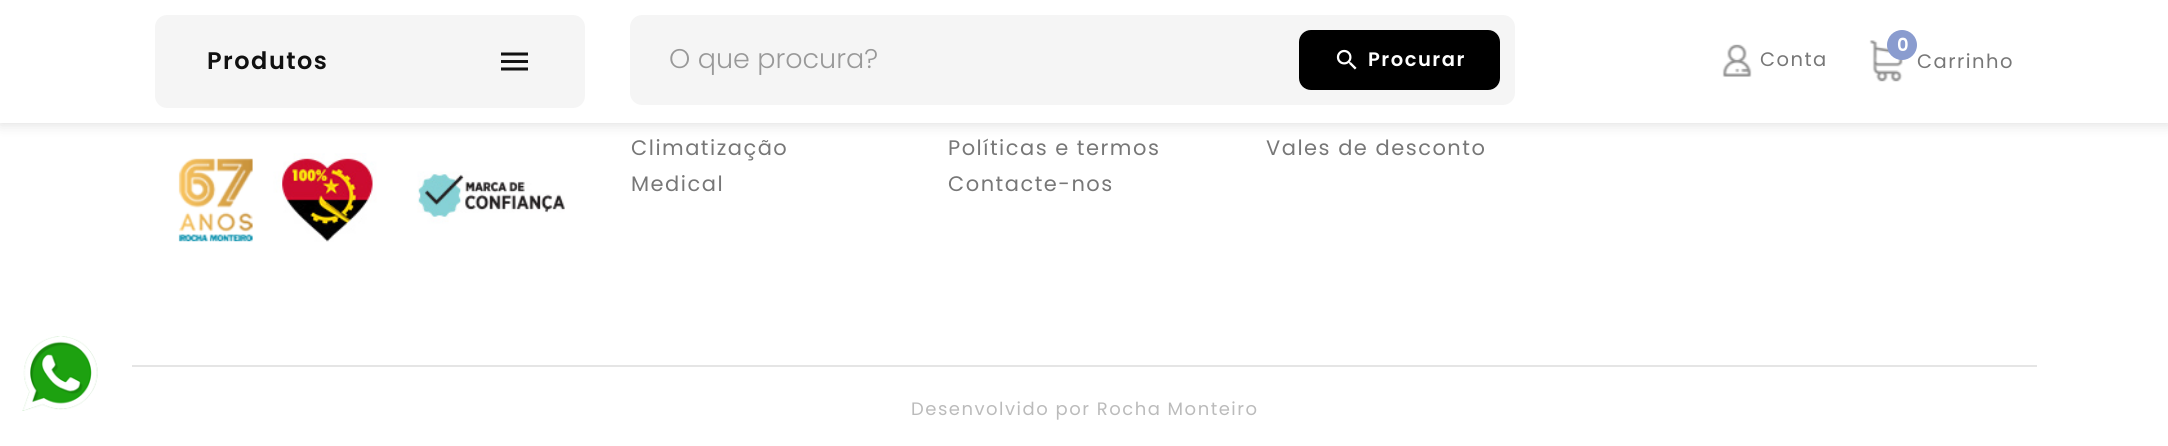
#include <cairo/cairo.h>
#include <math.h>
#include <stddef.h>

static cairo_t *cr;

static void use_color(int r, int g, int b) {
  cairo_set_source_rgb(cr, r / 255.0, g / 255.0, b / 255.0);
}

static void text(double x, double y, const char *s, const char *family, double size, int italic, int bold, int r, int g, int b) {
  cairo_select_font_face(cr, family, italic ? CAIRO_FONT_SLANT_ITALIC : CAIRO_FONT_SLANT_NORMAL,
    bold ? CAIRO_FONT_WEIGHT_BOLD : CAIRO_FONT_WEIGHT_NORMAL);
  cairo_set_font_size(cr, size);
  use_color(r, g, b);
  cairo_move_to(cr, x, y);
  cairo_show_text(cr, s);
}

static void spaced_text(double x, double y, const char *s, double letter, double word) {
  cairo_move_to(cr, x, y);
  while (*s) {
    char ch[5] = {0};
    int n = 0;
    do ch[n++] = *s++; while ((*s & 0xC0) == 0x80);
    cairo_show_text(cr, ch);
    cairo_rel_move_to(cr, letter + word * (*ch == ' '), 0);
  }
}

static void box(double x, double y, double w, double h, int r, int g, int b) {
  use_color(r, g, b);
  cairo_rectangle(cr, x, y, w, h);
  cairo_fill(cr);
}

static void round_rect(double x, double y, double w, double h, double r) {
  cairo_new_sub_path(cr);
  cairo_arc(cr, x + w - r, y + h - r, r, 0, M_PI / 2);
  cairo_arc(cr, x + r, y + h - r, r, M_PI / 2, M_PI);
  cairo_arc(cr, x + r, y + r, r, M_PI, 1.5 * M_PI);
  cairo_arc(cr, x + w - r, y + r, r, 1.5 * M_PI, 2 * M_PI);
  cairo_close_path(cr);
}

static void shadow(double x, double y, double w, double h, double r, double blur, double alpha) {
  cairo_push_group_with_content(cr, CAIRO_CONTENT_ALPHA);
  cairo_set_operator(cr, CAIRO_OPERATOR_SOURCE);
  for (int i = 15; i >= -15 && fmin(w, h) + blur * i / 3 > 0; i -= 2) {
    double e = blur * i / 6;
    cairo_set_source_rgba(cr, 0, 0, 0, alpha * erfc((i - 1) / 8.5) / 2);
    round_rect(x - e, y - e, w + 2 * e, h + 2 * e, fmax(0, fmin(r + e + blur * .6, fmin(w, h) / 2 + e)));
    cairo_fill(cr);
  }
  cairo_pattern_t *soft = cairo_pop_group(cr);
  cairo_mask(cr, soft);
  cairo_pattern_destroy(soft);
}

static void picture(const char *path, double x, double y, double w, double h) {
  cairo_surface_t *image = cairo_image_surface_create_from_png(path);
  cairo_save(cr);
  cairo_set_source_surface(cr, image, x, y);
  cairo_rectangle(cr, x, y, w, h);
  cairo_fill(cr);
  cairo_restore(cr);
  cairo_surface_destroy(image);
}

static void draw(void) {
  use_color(255, 255, 255);
  cairo_paint(cr);
  use_color(0, 0, 0);
  shadow(0, 0, 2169, 123, 0, 7.5, 0.15);
  box(0, 0, 2168, 123, 255, 255, 255);
  use_color(245, 245, 245);
  round_rect(155, 15, 430, 93, 12);
  cairo_fill(cr);
  picture("img_01.png", 501, 52, 27, 19);
  round_rect(630, 15, 885, 90, 12);
  cairo_fill(cr);
  use_color(0, 0, 0);
  round_rect(1299, 30, 201, 60, 12);
  cairo_fill(cr);
  picture("img_02.png", 1336, 49, 21, 21);
  picture("img_03.png", 1722, 44, 30, 33);
  picture("img_04.png", 1869, 40, 34, 42);
  use_color(138, 156, 207);
  cairo_arc(cr, 1902, 45, 15, 0, 2 * M_PI);
  cairo_fill(cr);
  picture("img_05.png", 178, 153, 387, 89);
  picture("img_06.png", 22, 336, 76, 75);
  box(132, 365, 1905, 2, 229, 229, 229);
  cairo_select_font_face(cr, "Poppins SemiBold", CAIRO_FONT_SLANT_NORMAL, CAIRO_FONT_WEIGHT_NORMAL);
  cairo_set_font_size(cr, 24);
  use_color(17, 17, 17);
  spaced_text(207, 69, "Produtos", 1.5, 0);
  text(669, 68, "O que procura?", "Poppins Light", 27, 0, 0, 153, 153, 153);
  cairo_select_font_face(cr, "Poppins SemiBold", CAIRO_FONT_SLANT_NORMAL, CAIRO_FONT_WEIGHT_NORMAL);
  cairo_set_font_size(cr, 19.5);
  use_color(255, 255, 255);
  spaced_text(1368, 66, "Procurar", 1.5, 0);
  cairo_select_font_face(cr, "Poppins", CAIRO_FONT_SLANT_NORMAL, CAIRO_FONT_WEIGHT_NORMAL);
  use_color(119, 119, 119);
  spaced_text(1760, 66, "Conta", 1.5, 0);
  cairo_select_font_face(cr, "Poppins SemiBold", CAIRO_FONT_SLANT_NORMAL, CAIRO_FONT_WEIGHT_NORMAL);
  cairo_set_font_size(cr, 18);
  use_color(255, 255, 255);
  spaced_text(1897, 51, "0", 1.5, 0);
  cairo_select_font_face(cr, "Poppins", CAIRO_FONT_SLANT_NORMAL, CAIRO_FONT_WEIGHT_NORMAL);
  cairo_set_font_size(cr, 19.5);
  use_color(119, 119, 119);
  spaced_text(1917, 68, "Carrinho", 1.5, 0);
  cairo_set_font_size(cr, 21);
  spaced_text(631, 155, "Climatização", 1.5, 0);
  spaced_text(631, 191, "Medical", 1.5, 0);
  spaced_text(948, 155, "Políticas e termos", 1.5, 0);
  spaced_text(948, 191, "Contacte-nos", 1.5, 0);
  spaced_text(1266, 155, "Vales de desconto", 1.5, 0);
  cairo_set_font_size(cr, 18);
  use_color(187, 187, 187);
  spaced_text(911, 415, "Desenvolvido por Rocha Monteiro", 1.5, 0);
}

int main(void) {
  cairo_surface_t *surface = cairo_image_surface_create(CAIRO_FORMAT_RGB24, 2168, 446);
  cr = cairo_create(surface);
  cairo_font_options_t *options = cairo_font_options_create();
  cairo_font_options_set_hint_metrics(options, CAIRO_HINT_METRICS_OFF);
  cairo_font_options_set_hint_style(options, CAIRO_HINT_STYLE_NONE);
  cairo_set_font_options(cr, options);
  cairo_set_miter_limit(cr, 4);
  draw();
  cairo_surface_write_to_png(surface, "out.png");
  cairo_font_options_destroy(options);
  cairo_destroy(cr);
  cairo_surface_destroy(surface);
  return 0;
}
